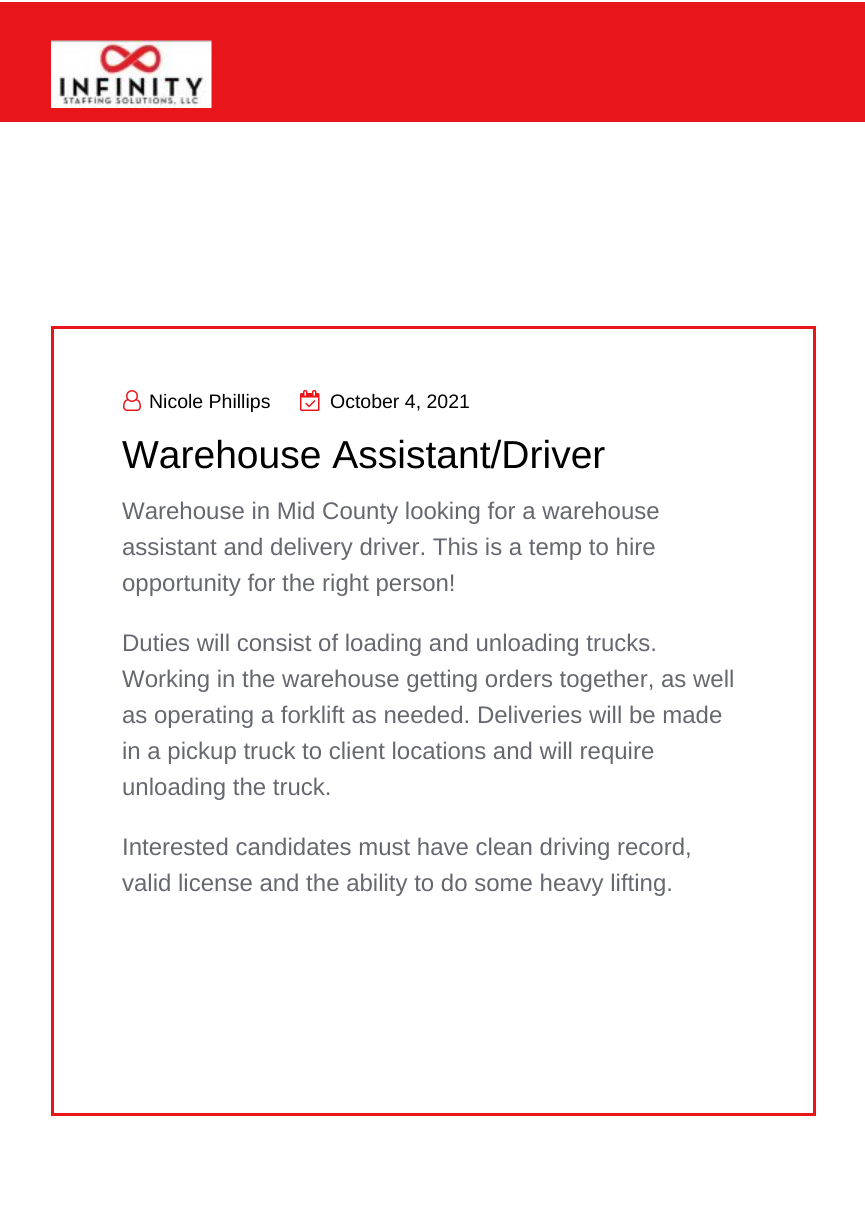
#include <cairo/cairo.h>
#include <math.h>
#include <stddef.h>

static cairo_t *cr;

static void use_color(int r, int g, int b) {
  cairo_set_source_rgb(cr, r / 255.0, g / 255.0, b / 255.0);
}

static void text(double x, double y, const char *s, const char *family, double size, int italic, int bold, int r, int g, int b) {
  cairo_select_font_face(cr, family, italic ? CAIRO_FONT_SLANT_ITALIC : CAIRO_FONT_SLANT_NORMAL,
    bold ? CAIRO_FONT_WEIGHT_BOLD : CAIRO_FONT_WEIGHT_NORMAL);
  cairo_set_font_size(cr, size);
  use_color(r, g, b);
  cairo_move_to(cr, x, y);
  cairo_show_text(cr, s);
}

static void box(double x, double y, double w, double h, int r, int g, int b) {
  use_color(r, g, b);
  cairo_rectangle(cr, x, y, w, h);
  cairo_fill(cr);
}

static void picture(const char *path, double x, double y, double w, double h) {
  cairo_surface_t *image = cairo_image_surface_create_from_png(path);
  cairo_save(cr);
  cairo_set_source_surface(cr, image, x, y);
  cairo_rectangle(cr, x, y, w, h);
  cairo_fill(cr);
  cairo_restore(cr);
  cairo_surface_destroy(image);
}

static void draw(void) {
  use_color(255, 255, 255);
  cairo_paint(cr);
  box(0, 2, 865, 120, 232, 21, 27);
  picture("img_01.png", 51, 40, 161, 68);
  cairo_rectangle(cr, 52.5, 327.5, 762, 787);
  cairo_set_line_width(cr, 3);
  cairo_stroke(cr);
  picture("img_02.png", 123, 390, 18, 21);
  picture("img_03.png", 300, 390, 20, 21);
  text(149, 408, "Nicole Phillips", "Liberation Sans", 19.5, 0, 0, 0, 0, 0);
  text(330, 408, "October 4, 2021", "Liberation Sans", 19.5, 0, 0, 0, 0, 0);
  text(122, 468, "Warehouse Assistant/Driver", "Liberation Sans", 39, 0, 0, 0, 0, 0);
  text(122, 519, "Warehouse in Mid County looking for a warehouse", "Liberation Sans", 24, 0, 0, 102, 104, 111);
  text(122, 555, "assistant and delivery driver. This is a temp to hire", "Liberation Sans", 24, 0, 0, 102, 104, 111);
  text(122, 591, "opportunity for the right person!", "Liberation Sans", 24, 0, 0, 102, 104, 111);
  text(122, 651, "Duties will consist of loading and unloading trucks.", "Liberation Sans", 24, 0, 0, 102, 104, 111);
  text(122, 687, "Working in the warehouse getting orders together, as well", "Liberation Sans", 24, 0, 0, 102, 104, 111);
  text(122, 723, "as operating a forklift as needed. Deliveries will be made", "Liberation Sans", 24, 0, 0, 102, 104, 111);
  text(122, 759, "in a pickup truck to client locations and will require", "Liberation Sans", 24, 0, 0, 102, 104, 111);
  text(122, 795, "unloading the truck.", "Liberation Sans", 24, 0, 0, 102, 104, 111);
  text(122, 855, "Interested candidates must have clean driving record,", "Liberation Sans", 24, 0, 0, 102, 104, 111);
  text(122, 891, "valid license and the ability to do some heavy lifting.", "Liberation Sans", 24, 0, 0, 102, 104, 111);
}

int main(void) {
  cairo_surface_t *surface = cairo_image_surface_create(CAIRO_FORMAT_RGB24, 865, 1227);
  cr = cairo_create(surface);
  cairo_font_options_t *options = cairo_font_options_create();
  cairo_font_options_set_hint_metrics(options, CAIRO_HINT_METRICS_OFF);
  cairo_font_options_set_hint_style(options, CAIRO_HINT_STYLE_NONE);
  cairo_set_font_options(cr, options);
  cairo_set_miter_limit(cr, 4);
  draw();
  cairo_surface_write_to_png(surface, "out.png");
  cairo_font_options_destroy(options);
  cairo_destroy(cr);
  cairo_surface_destroy(surface);
  return 0;
}
